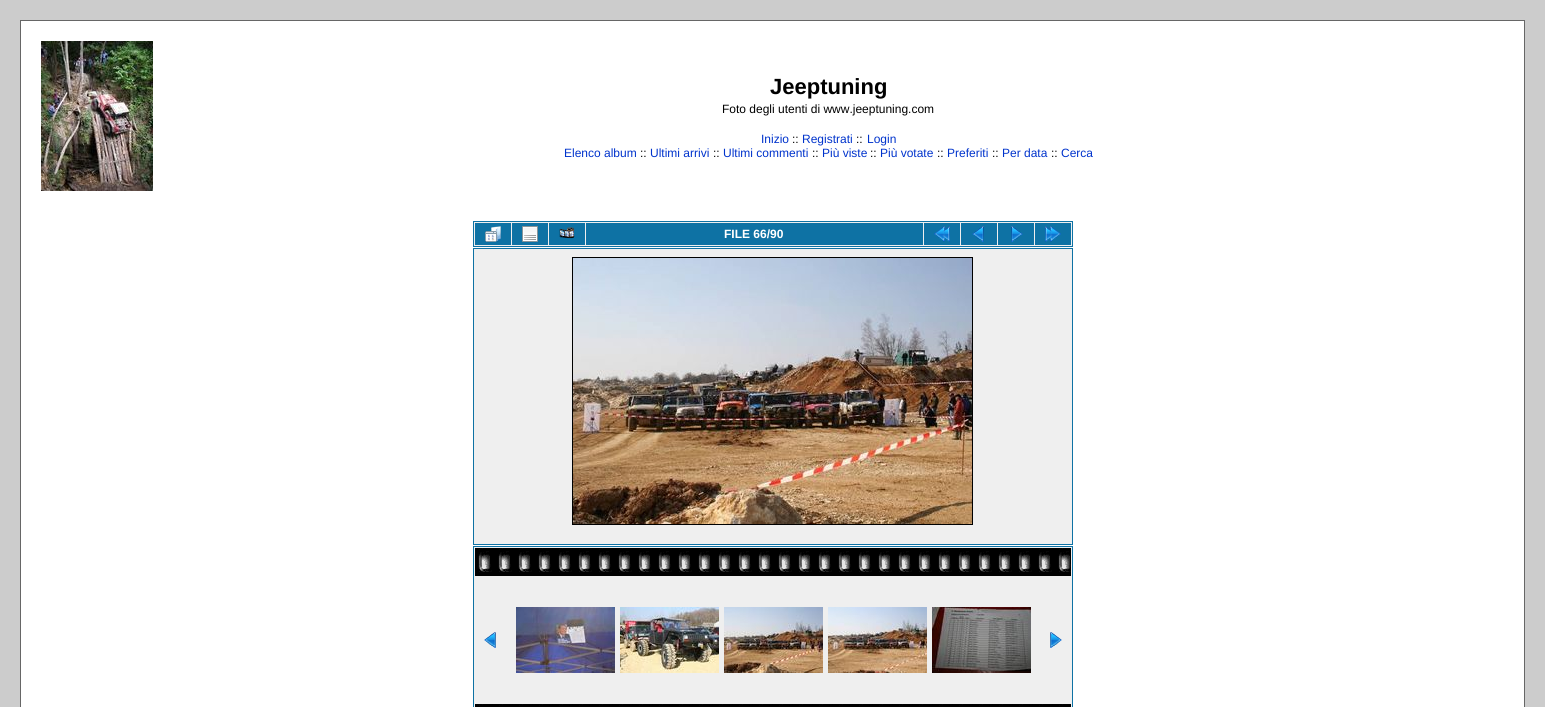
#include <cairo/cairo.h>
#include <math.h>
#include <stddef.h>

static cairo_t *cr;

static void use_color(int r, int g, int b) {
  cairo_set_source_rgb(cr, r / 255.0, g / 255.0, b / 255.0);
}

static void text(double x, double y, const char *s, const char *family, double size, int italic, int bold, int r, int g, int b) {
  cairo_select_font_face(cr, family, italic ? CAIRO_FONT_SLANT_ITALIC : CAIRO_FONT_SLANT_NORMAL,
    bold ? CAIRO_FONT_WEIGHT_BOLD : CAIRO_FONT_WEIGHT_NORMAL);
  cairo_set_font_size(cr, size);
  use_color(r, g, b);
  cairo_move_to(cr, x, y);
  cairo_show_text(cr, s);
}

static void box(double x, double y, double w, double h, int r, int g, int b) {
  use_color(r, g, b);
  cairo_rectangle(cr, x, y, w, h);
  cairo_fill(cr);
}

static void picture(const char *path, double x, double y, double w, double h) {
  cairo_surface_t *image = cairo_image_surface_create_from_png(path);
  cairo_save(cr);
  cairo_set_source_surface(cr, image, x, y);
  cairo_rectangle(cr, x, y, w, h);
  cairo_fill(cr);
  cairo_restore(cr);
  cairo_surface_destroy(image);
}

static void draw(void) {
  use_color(204, 204, 204);
  cairo_paint(cr);
  use_color(255, 255, 255);
  cairo_rectangle(cr, 20.5, 20.5, 1504, 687);
  cairo_fill_preserve(cr);
  use_color(102, 102, 102);
  cairo_set_line_width(cr, 1);
  cairo_stroke(cr);
  picture("img_01.png", 41, 41, 112, 150);
  use_color(239, 239, 239);
  cairo_rectangle(cr, 473.5, 221.5, 599, 25);
  cairo_fill_preserve(cr);
  use_color(14, 114, 164);
  cairo_stroke(cr);
  box(475, 223, 36, 22, 14, 114, 164);
  picture("img_02.png", 485, 226, 16, 16);
  box(512, 223, 36, 22, 14, 114, 164);
  picture("img_03.png", 522, 226, 16, 16);
  box(549, 223, 36, 22, 14, 114, 164);
  picture("img_04.png", 559, 227, 16, 12);
  box(586, 223, 337, 22, 14, 114, 164);
  box(924, 223, 36, 22, 14, 114, 164);
  picture("img_05.png", 934, 226, 16, 16);
  box(961, 223, 36, 22, 14, 114, 164);
  picture("img_06.png", 972, 226, 12, 16);
  box(998, 223, 36, 22, 14, 114, 164);
  picture("img_07.png", 1011, 226, 12, 16);
  box(1035, 223, 36, 22, 14, 114, 164);
  picture("img_08.png", 1045, 226, 16, 16);
  use_color(239, 239, 239);
  cairo_rectangle(cr, 473.5, 248.5, 599, 296);
  cairo_fill_preserve(cr);
  use_color(14, 114, 164);
  cairo_stroke(cr);
  cairo_rectangle(cr, 572.5, 257.5, 400, 267);
  use_color(0, 0, 0);
  cairo_stroke(cr);
  picture("img_09.png", 573, 258, 399, 266);
  use_color(239, 239, 239);
  cairo_rectangle(cr, 473.5, 546.5, 599, 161);
  cairo_fill_preserve(cr);
  use_color(14, 114, 164);
  cairo_stroke(cr);
  picture("img_10.png", 475, 548, 596, 28);
  picture("img_11.png", 484, 632, 12, 16);
  picture("img_12.png", 516, 607, 99, 66);
  picture("img_13.png", 620, 607, 99, 66);
  picture("img_14.png", 724, 607, 99, 66);
  picture("img_15.png", 828, 607, 99, 66);
  picture("img_16.png", 932, 607, 99, 66);
  picture("img_17.png", 1050, 632, 12, 16);
  picture("img_18.png", 475, 704, 596, 3);
  text(770, 94, "Jeeptuning", "Liberation Sans", 22, 0, 1, 0, 0, 0);
  text(722, 113, "Foto degli utenti di www.jeeptuning.com", "Liberation Sans", 12, 0, 0, 0, 0, 0);
  text(761, 143, "Inizio", "Liberation Sans", 12, 0, 0, 0, 51, 204);
  text(792, 143, "::", "Liberation Sans", 12, 0, 0, 0, 0, 0);
  text(802, 143, "Registrati", "Liberation Sans", 12, 0, 0, 0, 51, 204);
  text(856, 143, "::", "Liberation Sans", 12, 0, 0, 0, 0, 0);
  text(867, 143, "Login", "Liberation Sans", 12, 0, 0, 0, 51, 204);
  text(564, 157, "Elenco album", "Liberation Sans", 12, 0, 0, 0, 51, 204);
  text(640, 157, "::", "Liberation Sans", 12, 0, 0, 0, 0, 0);
  text(650, 157, "Ultimi arrivi", "Liberation Sans", 12, 0, 0, 0, 51, 204);
  text(713, 157, "::", "Liberation Sans", 12, 0, 0, 0, 0, 0);
  text(723, 157, "Ultimi commenti", "Liberation Sans", 12, 0, 0, 0, 51, 204);
  text(812, 157, "::", "Liberation Sans", 12, 0, 0, 0, 0, 0);
  text(822, 157, "Più viste", "Liberation Sans", 12, 0, 0, 0, 51, 204);
  text(870, 157, "::", "Liberation Sans", 12, 0, 0, 0, 0, 0);
  text(880, 157, "Più votate", "Liberation Sans", 12, 0, 0, 0, 51, 204);
  text(937, 157, "::", "Liberation Sans", 12, 0, 0, 0, 0, 0);
  text(947, 157, "Preferiti", "Liberation Sans", 12, 0, 0, 0, 51, 204);
  text(992, 157, "::", "Liberation Sans", 12, 0, 0, 0, 0, 0);
  text(1002, 157, "Per data", "Liberation Sans", 12, 0, 0, 0, 51, 204);
  text(1051, 157, "::", "Liberation Sans", 12, 0, 0, 0, 0, 0);
  text(1061, 157, "Cerca", "Liberation Sans", 12, 0, 0, 0, 51, 204);
  text(724, 238, "FILE 66/90", "Liberation Sans", 12, 0, 1, 255, 255, 255);
}

int main(void) {
  cairo_surface_t *surface = cairo_image_surface_create(CAIRO_FORMAT_RGB24, 1545, 707);
  cr = cairo_create(surface);
  cairo_font_options_t *options = cairo_font_options_create();
  cairo_font_options_set_hint_metrics(options, CAIRO_HINT_METRICS_OFF);
  cairo_font_options_set_hint_style(options, CAIRO_HINT_STYLE_NONE);
  cairo_set_font_options(cr, options);
  cairo_set_miter_limit(cr, 4);
  draw();
  cairo_surface_write_to_png(surface, "out.png");
  cairo_font_options_destroy(options);
  cairo_destroy(cr);
  cairo_surface_destroy(surface);
  return 0;
}
